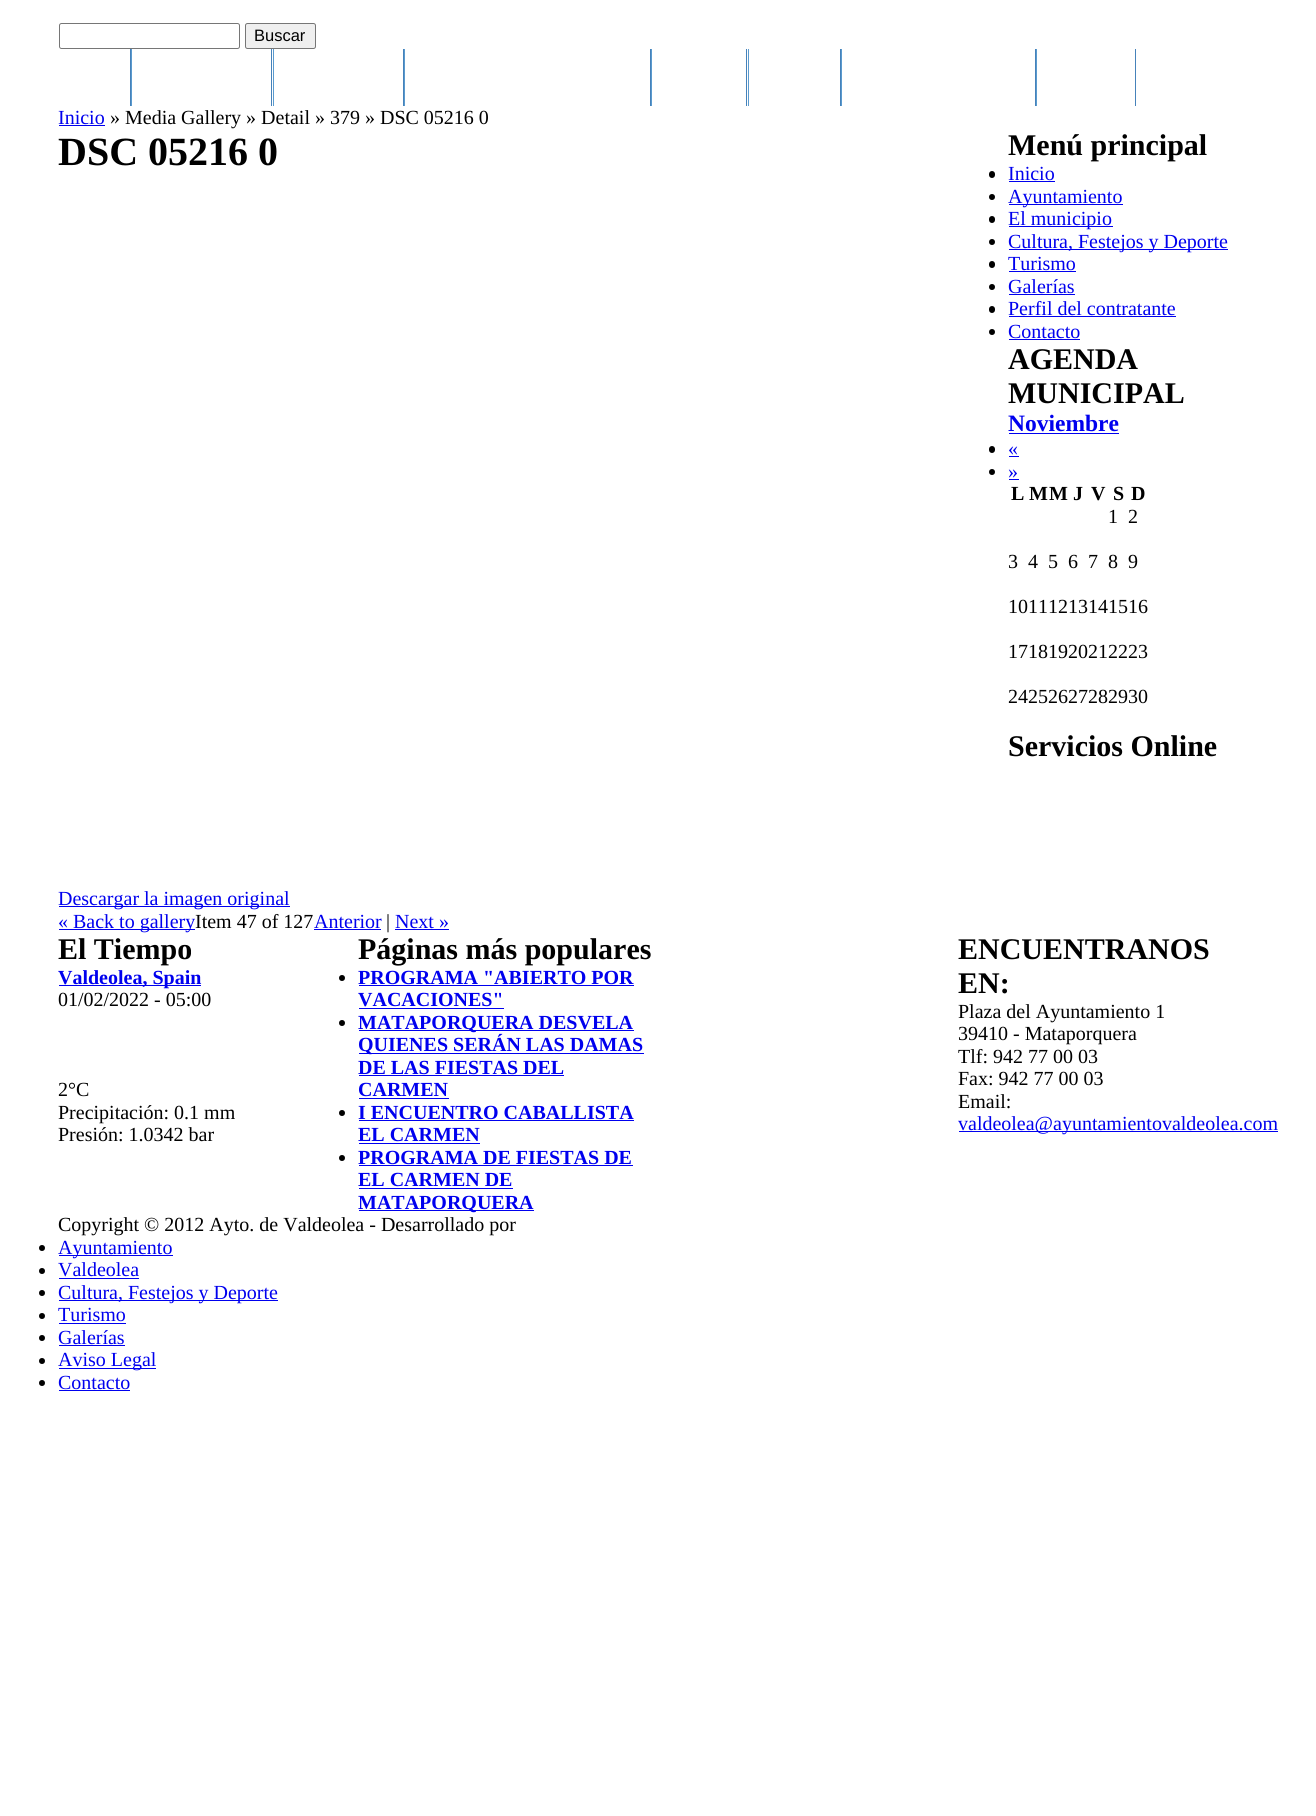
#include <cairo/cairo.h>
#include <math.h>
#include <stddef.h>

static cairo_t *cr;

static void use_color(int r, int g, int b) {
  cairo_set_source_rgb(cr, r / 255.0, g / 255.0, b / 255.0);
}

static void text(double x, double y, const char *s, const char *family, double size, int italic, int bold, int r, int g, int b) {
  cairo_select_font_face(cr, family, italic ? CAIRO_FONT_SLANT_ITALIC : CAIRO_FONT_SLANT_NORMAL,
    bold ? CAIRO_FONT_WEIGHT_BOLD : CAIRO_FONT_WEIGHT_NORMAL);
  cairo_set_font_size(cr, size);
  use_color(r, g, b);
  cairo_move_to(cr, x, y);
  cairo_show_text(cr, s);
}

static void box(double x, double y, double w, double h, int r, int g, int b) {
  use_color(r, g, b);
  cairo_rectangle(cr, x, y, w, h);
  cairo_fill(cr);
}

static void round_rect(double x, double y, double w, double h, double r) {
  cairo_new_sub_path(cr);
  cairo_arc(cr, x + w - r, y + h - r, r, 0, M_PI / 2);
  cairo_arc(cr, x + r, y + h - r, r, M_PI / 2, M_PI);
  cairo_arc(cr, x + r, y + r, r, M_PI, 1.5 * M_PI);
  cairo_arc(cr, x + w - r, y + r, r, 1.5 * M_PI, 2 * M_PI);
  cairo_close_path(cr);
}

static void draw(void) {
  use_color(255, 255, 255);
  cairo_paint(cr);
  round_rect(59.5, 23.5, 180, 25, 2);
  use_color(118, 118, 118);
  cairo_set_line_width(cr, 1);
  cairo_stroke(cr);
  use_color(239, 239, 239);
  round_rect(245.5, 23.5, 70, 25, 2);
  cairo_fill_preserve(cr);
  use_color(118, 118, 118);
  cairo_stroke(cr);
  box(130, 49, 1, 57, 70, 130, 186);
  box(271, 49, 1, 57, 70, 130, 186);
  box(131, 49, 1, 57, 90, 154, 206);
  box(403, 49, 1, 57, 70, 130, 186);
  box(273, 49, 1, 57, 90, 154, 206);
  box(650, 49, 1, 57, 70, 130, 186);
  box(404, 49, 1, 57, 90, 154, 206);
  box(746, 49, 1, 57, 70, 130, 186);
  box(651, 49, 1, 57, 90, 154, 206);
  box(840, 49, 1, 57, 70, 130, 186);
  box(748, 49, 1, 57, 90, 154, 206);
  box(1035, 49, 1, 57, 70, 130, 186);
  box(841, 49, 1, 57, 90, 154, 206);
  box(1135, 49, 1, 57, 70, 130, 186);
  box(1036, 49, 1, 57, 90, 154, 206);
  box(59, 125, 46, 1, 0, 0, 238);
  box(59, 906, 231, 1, 0, 0, 238);
  box(59, 929, 136, 1, 0, 0, 238);
  box(314, 929, 67, 1, 0, 0, 238);
  box(395, 929, 54, 1, 0, 0, 238);
  use_color(0, 0, 0);
  round_rect(989, 171, 6, 7, 3);
  cairo_fill(cr);
  box(1009, 181, 46, 1, 0, 0, 238);
  use_color(0, 0, 0);
  cairo_arc(cr, 992, 197, 3, 0, 2 * M_PI);
  cairo_fill(cr);
  box(1009, 204, 114, 1, 0, 0, 238);
  use_color(0, 0, 0);
  round_rect(989, 216, 6, 7, 3);
  cairo_fill(cr);
  box(1009, 226, 104, 1, 0, 0, 238);
  use_color(0, 0, 0);
  cairo_arc(cr, 992, 242, 3, 0, 2 * M_PI);
  cairo_fill(cr);
  box(1009, 249, 219, 1, 0, 0, 238);
  use_color(0, 0, 0);
  round_rect(989, 261, 6, 7, 3);
  cairo_fill(cr);
  box(1009, 271, 67, 1, 0, 0, 238);
  use_color(0, 0, 0);
  cairo_arc(cr, 992, 287, 3, 0, 2 * M_PI);
  cairo_fill(cr);
  box(1009, 294, 66, 1, 0, 0, 238);
  use_color(0, 0, 0);
  round_rect(989, 306, 6, 7, 3);
  cairo_fill(cr);
  box(1009, 316, 167, 1, 0, 0, 238);
  use_color(0, 0, 0);
  cairo_arc(cr, 992, 332, 3, 0, 2 * M_PI);
  cairo_fill(cr);
  box(1009, 339, 71, 1, 0, 0, 238);
  box(1009, 433, 110, 1, 0, 0, 238);
  use_color(0, 0, 0);
  round_rect(989, 446, 6, 7, 3);
  cairo_fill(cr);
  box(1009, 456, 10, 1, 0, 0, 238);
  use_color(0, 0, 0);
  cairo_arc(cr, 992, 472, 3, 0, 2 * M_PI);
  cairo_fill(cr);
  box(1009, 479, 10, 1, 0, 0, 238);
  box(59, 985, 142, 1, 0, 0, 238);
  use_color(0, 0, 0);
  cairo_arc(cr, 342, 978, 3, 0, 2 * M_PI);
  cairo_fill(cr);
  box(359, 985, 275, 1, 0, 0, 238);
  box(359, 1008, 145, 1, 0, 0, 238);
  use_color(0, 0, 0);
  cairo_arc(cr, 342, 1023, 3, 0, 2 * M_PI);
  cairo_fill(cr);
  box(359, 1030, 275, 1, 0, 0, 238);
  box(359, 1053, 285, 1, 0, 0, 238);
  box(359, 1075, 205, 1, 0, 0, 238);
  box(359, 1098, 90, 1, 0, 0, 238);
  use_color(0, 0, 0);
  cairo_arc(cr, 342, 1113, 3, 0, 2 * M_PI);
  cairo_fill(cr);
  box(359, 1120, 275, 1, 0, 0, 238);
  box(359, 1143, 121, 1, 0, 0, 238);
  use_color(0, 0, 0);
  cairo_arc(cr, 342, 1158, 3, 0, 2 * M_PI);
  cairo_fill(cr);
  box(359, 1165, 274, 1, 0, 0, 238);
  box(359, 1188, 154, 1, 0, 0, 238);
  box(359, 1210, 175, 1, 0, 0, 238);
  box(959, 1131, 319, 1, 0, 0, 238);
  use_color(0, 0, 0);
  cairo_arc(cr, 42, 1248, 3, 0, 2 * M_PI);
  cairo_fill(cr);
  box(59, 1255, 114, 1, 0, 0, 238);
  use_color(0, 0, 0);
  cairo_arc(cr, 42, 1271, 3, 0, 2 * M_PI);
  cairo_fill(cr);
  box(59, 1278, 80, 1, 0, 0, 238);
  use_color(0, 0, 0);
  cairo_arc(cr, 42, 1293, 3, 0, 2 * M_PI);
  cairo_fill(cr);
  box(59, 1300, 219, 1, 0, 0, 238);
  use_color(0, 0, 0);
  cairo_arc(cr, 42, 1316, 3, 0, 2 * M_PI);
  cairo_fill(cr);
  box(59, 1323, 67, 1, 0, 0, 238);
  use_color(0, 0, 0);
  cairo_arc(cr, 42, 1338, 3, 0, 2 * M_PI);
  cairo_fill(cr);
  box(59, 1345, 66, 1, 0, 0, 238);
  use_color(0, 0, 0);
  cairo_arc(cr, 42, 1361, 3, 0, 2 * M_PI);
  cairo_fill(cr);
  box(59, 1368, 97, 1, 0, 0, 238);
  use_color(0, 0, 0);
  cairo_arc(cr, 42, 1383, 3, 0, 2 * M_PI);
  cairo_fill(cr);
  box(59, 1390, 71, 1, 0, 0, 238);
  text(254, 41, "Buscar", "Liberation Sans", 16.5, 0, 0, 0, 0, 0);
  text(58, 124, "Inicio", "Liberation Serif", 20, 0, 0, 0, 0, 238);
  text(110, 124, "» Media Gallery » Detail » 379 » DSC 05216 0", "Liberation Serif", 20, 0, 0, 0, 0, 0);
  text(58, 165, "DSC 05216 0", "Liberation Serif", 40, 0, 1, 0, 0, 0);
  text(58, 905, "Descargar la imagen original", "Liberation Serif", 20, 0, 0, 0, 0, 238);
  text(58, 928, "« Back to gallery", "Liberation Serif", 20, 0, 0, 0, 0, 238);
  text(195, 928, "Item 47 of 127", "Liberation Serif", 20, 0, 0, 0, 0, 0);
  text(314, 928, "Anterior", "Liberation Serif", 20, 0, 0, 0, 0, 238);
  text(386, 928, "|", "Liberation Serif", 20, 0, 0, 0, 0, 0);
  text(395, 928, "Next »", "Liberation Serif", 20, 0, 0, 0, 0, 238);
  text(1008, 155, "Menú principal", "Liberation Serif", 30, 0, 1, 0, 0, 0);
  text(1008, 180, "Inicio", "Liberation Serif", 20, 0, 0, 0, 0, 238);
  text(1008, 203, "Ayuntamiento", "Liberation Serif", 20, 0, 0, 0, 0, 238);
  text(1008, 225, "El municipio", "Liberation Serif", 20, 0, 0, 0, 0, 238);
  text(1008, 248, "Cultura, Festejos y Deporte", "Liberation Serif", 20, 0, 0, 0, 0, 238);
  text(1008, 270, "Turismo", "Liberation Serif", 20, 0, 0, 0, 0, 238);
  text(1008, 293, "Galerías", "Liberation Serif", 20, 0, 0, 0, 0, 238);
  text(1008, 315, "Perfil del contratante", "Liberation Serif", 20, 0, 0, 0, 0, 238);
  text(1008, 338, "Contacto", "Liberation Serif", 20, 0, 0, 0, 0, 238);
  text(1008, 369, "AGENDA", "Liberation Serif", 30, 0, 1, 0, 0, 0);
  text(1008, 403, "MUNICIPAL", "Liberation Serif", 30, 0, 1, 0, 0, 0);
  text(1008, 431, "Noviembre", "Liberation Serif", 23.5, 0, 1, 0, 0, 238);
  text(1008, 455, "«", "Liberation Serif", 20, 0, 0, 0, 0, 238);
  text(1008, 478, "»", "Liberation Serif", 20, 0, 0, 0, 0, 238);
  text(1011, 500, "L", "Liberation Serif", 20, 0, 1, 0, 0, 0);
  text(1029, 500, "M", "Liberation Serif", 20, 0, 1, 0, 0, 0);
  text(1049, 500, "M", "Liberation Serif", 20, 0, 1, 0, 0, 0);
  text(1073, 500, "J", "Liberation Serif", 20, 0, 1, 0, 0, 0);
  text(1091, 500, "V", "Liberation Serif", 20, 0, 1, 0, 0, 0);
  text(1113, 500, "S", "Liberation Serif", 20, 0, 1, 0, 0, 0);
  text(1131, 500, "D", "Liberation Serif", 20, 0, 1, 0, 0, 0);
  text(1108, 523, "1", "Liberation Serif", 20, 0, 0, 0, 0, 0);
  text(1128, 523, "2", "Liberation Serif", 20, 0, 0, 0, 0, 0);
  text(1008, 568, "3", "Liberation Serif", 20, 0, 0, 0, 0, 0);
  text(1028, 568, "4", "Liberation Serif", 20, 0, 0, 0, 0, 0);
  text(1048, 568, "5", "Liberation Serif", 20, 0, 0, 0, 0, 0);
  text(1068, 568, "6", "Liberation Serif", 20, 0, 0, 0, 0, 0);
  text(1088, 568, "7", "Liberation Serif", 20, 0, 0, 0, 0, 0);
  text(1108, 568, "8", "Liberation Serif", 20, 0, 0, 0, 0, 0);
  text(1128, 568, "9", "Liberation Serif", 20, 0, 0, 0, 0, 0);
  text(1008, 613, "10111213141516", "Liberation Serif", 20, 0, 0, 0, 0, 0);
  text(1008, 658, "17181920212223", "Liberation Serif", 20, 0, 0, 0, 0, 0);
  text(1008, 703, "24252627282930", "Liberation Serif", 20, 0, 0, 0, 0, 0);
  text(1008, 756, "Servicios Online", "Liberation Serif", 30, 0, 1, 0, 0, 0);
  text(58, 959, "El Tiempo", "Liberation Serif", 30, 0, 1, 0, 0, 0);
  text(58, 984, "Valdeolea, Spain", "Liberation Serif", 20, 0, 1, 0, 0, 238);
  text(58, 1006, "01/02/2022 - 05:00", "Liberation Serif", 20, 0, 0, 0, 0, 0);
  text(58, 1096, "2°C", "Liberation Serif", 20, 0, 0, 0, 0, 0);
  text(58, 1119, "Precipitación: 0.1 mm", "Liberation Serif", 20, 0, 0, 0, 0, 0);
  text(58, 1141, "Presión: 1.0342 bar", "Liberation Serif", 20, 0, 0, 0, 0, 0);
  text(358, 959, "Páginas más populares", "Liberation Serif", 30, 0, 1, 0, 0, 0);
  text(358, 984, "PROGRAMA \"ABIERTO POR", "Liberation Serif", 20, 0, 1, 0, 0, 238);
  text(358, 1006, "VACACIONES\"", "Liberation Serif", 20, 0, 1, 0, 0, 238);
  text(358, 1029, "MATAPORQUERA DESVELA", "Liberation Serif", 20, 0, 1, 0, 0, 238);
  text(358, 1051, "QUIENES SERÁN LAS DAMAS", "Liberation Serif", 20, 0, 1, 0, 0, 238);
  text(358, 1074, "DE LAS FIESTAS DEL", "Liberation Serif", 20, 0, 1, 0, 0, 238);
  text(358, 1096, "CARMEN", "Liberation Serif", 20, 0, 1, 0, 0, 238);
  text(358, 1119, "I ENCUENTRO CABALLISTA", "Liberation Serif", 20, 0, 1, 0, 0, 238);
  text(358, 1141, "EL CARMEN", "Liberation Serif", 20, 0, 1, 0, 0, 238);
  text(358, 1164, "PROGRAMA DE FIESTAS DE", "Liberation Serif", 20, 0, 1, 0, 0, 238);
  text(358, 1186, "EL CARMEN DE", "Liberation Serif", 20, 0, 1, 0, 0, 238);
  text(358, 1209, "MATAPORQUERA", "Liberation Serif", 20, 0, 1, 0, 0, 238);
  text(958, 959, "ENCUENTRANOS", "Liberation Serif", 30, 0, 1, 0, 0, 0);
  text(958, 993, "EN:", "Liberation Serif", 30, 0, 1, 0, 0, 0);
  text(958, 1018, "Plaza del Ayuntamiento 1", "Liberation Serif", 20, 0, 0, 0, 0, 0);
  text(958, 1040, "39410 - Mataporquera", "Liberation Serif", 20, 0, 0, 0, 0, 0);
  text(958, 1063, "Tlf: 942 77 00 03", "Liberation Serif", 20, 0, 0, 0, 0, 0);
  text(958, 1085, "Fax: 942 77 00 03", "Liberation Serif", 20, 0, 0, 0, 0, 0);
  text(958, 1108, "Email:", "Liberation Serif", 20, 0, 0, 0, 0, 0);
  text(958, 1130, "valdeolea@ayuntamientovaldeolea.com", "Liberation Serif", 20, 0, 0, 0, 0, 238);
  text(58, 1231, "Copyright © 2012 Ayto. de Valdeolea - Desarrollado por", "Liberation Serif", 20, 0, 0, 0, 0, 0);
  text(58, 1254, "Ayuntamiento", "Liberation Serif", 20, 0, 0, 0, 0, 238);
  text(58, 1276, "Valdeolea", "Liberation Serif", 20, 0, 0, 0, 0, 238);
  text(58, 1299, "Cultura, Festejos y Deporte", "Liberation Serif", 20, 0, 0, 0, 0, 238);
  text(58, 1321, "Turismo", "Liberation Serif", 20, 0, 0, 0, 0, 238);
  text(58, 1344, "Galerías", "Liberation Serif", 20, 0, 0, 0, 0, 238);
  text(58, 1366, "Aviso Legal", "Liberation Serif", 20, 0, 0, 0, 0, 238);
  text(58, 1389, "Contacto", "Liberation Serif", 20, 0, 0, 0, 0, 238);
}

int main(void) {
  cairo_surface_t *surface = cairo_image_surface_create(CAIRO_FORMAT_RGB24, 1316, 1816);
  cr = cairo_create(surface);
  cairo_font_options_t *options = cairo_font_options_create();
  cairo_font_options_set_hint_metrics(options, CAIRO_HINT_METRICS_OFF);
  cairo_font_options_set_hint_style(options, CAIRO_HINT_STYLE_NONE);
  cairo_set_font_options(cr, options);
  cairo_set_miter_limit(cr, 4);
  draw();
  cairo_surface_write_to_png(surface, "out.png");
  cairo_font_options_destroy(options);
  cairo_destroy(cr);
  cairo_surface_destroy(surface);
  return 0;
}
